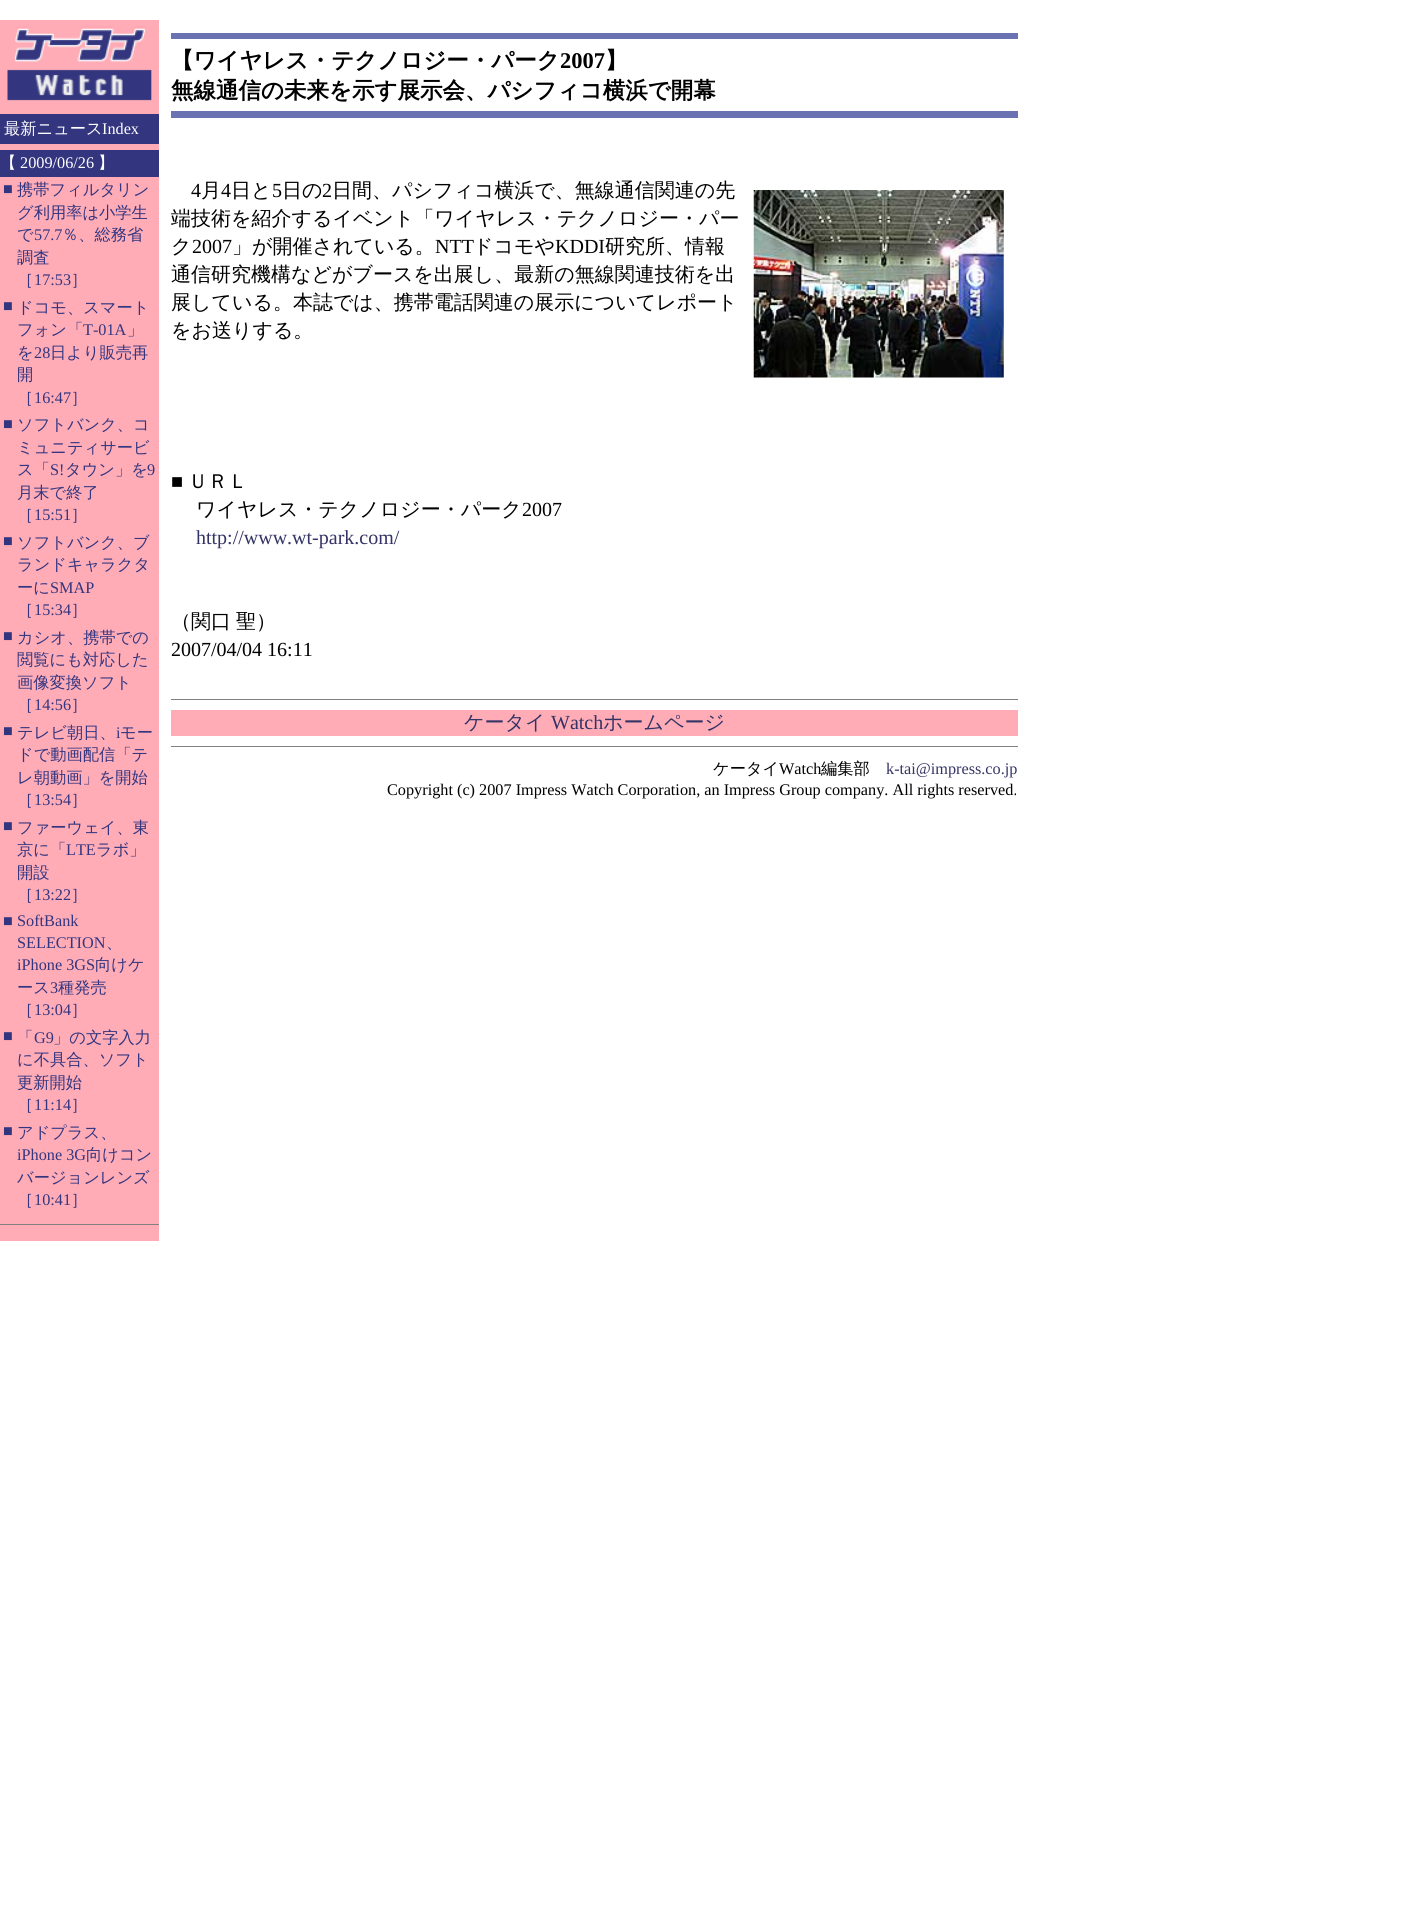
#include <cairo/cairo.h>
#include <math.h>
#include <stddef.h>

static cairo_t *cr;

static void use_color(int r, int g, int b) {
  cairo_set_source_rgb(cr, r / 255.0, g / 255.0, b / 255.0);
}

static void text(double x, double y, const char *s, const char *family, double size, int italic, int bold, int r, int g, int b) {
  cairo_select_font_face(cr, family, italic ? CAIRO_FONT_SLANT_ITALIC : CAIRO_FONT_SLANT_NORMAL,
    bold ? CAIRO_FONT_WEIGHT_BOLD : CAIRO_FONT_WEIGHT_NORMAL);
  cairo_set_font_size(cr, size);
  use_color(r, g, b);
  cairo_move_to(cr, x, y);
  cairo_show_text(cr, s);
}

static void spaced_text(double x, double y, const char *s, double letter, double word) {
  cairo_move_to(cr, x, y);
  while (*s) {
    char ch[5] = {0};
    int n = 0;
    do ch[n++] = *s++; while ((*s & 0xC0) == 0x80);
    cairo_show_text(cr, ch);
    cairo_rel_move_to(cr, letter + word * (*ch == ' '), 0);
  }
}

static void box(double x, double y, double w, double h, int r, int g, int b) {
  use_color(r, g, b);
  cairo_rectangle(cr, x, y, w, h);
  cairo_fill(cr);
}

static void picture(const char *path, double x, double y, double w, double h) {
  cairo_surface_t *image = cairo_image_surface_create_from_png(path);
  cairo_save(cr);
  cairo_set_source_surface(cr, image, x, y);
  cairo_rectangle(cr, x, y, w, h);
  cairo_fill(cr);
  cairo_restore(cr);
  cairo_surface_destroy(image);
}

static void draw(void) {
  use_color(255, 255, 255);
  cairo_paint(cr);
  box(0, 20, 159, 1221, 255, 172, 183);
  picture("img_01.png", 7, 26, 145, 75);
  box(0, 114, 159, 30, 51, 53, 127);
  box(0, 150, 159, 27, 51, 53, 127);
  box(0, 1224, 159, 1, 128, 128, 128);
  box(171, 33, 847, 6, 106, 114, 177);
  box(171, 111, 847, 7, 106, 114, 177);
  picture("img_02.png", 753, 190, 251, 188);
  box(171, 699, 847, 1, 128, 128, 128);
  box(171, 710, 847, 26, 255, 172, 183);
  box(171, 746, 847, 1, 128, 128, 128);
  text(4, 134, "最新ニュース", "WenQuanYi Zen Hei Medium", 16.25, 0, 0, 255, 255, 255);
  text(102, 134, "Index", "Liberation Serif", 16.25, 0, 0, 255, 255, 255);
  text(0, 168, "【", "WenQuanYi Zen Hei Medium", 16.25, 0, 0, 255, 255, 255);
  text(20, 168, "2009/06/26", "Liberation Serif", 16.25, 0, 0, 255, 255, 255);
  text(98, 168, "】", "WenQuanYi Zen Hei Medium", 16.25, 0, 0, 255, 255, 255);
  text(3, 194, "■", "Liberation Serif", 16.25, 0, 0, 51, 53, 127);
  text(17, 195, "携帯フィルタリン", "WenQuanYi Zen Hei Medium", 16.25, 0, 0, 51, 53, 127);
  text(17, 218, "グ利用率は小学生", "WenQuanYi Zen Hei Medium", 16.25, 0, 0, 51, 53, 127);
  text(17, 240, "で", "WenQuanYi Zen Hei Medium", 16.25, 0, 0, 51, 53, 127);
  text(34, 240, "57.7", "Liberation Serif", 16.25, 0, 0, 51, 53, 127);
  text(62, 240, "％、総務省", "WenQuanYi Zen Hei Medium", 16.25, 0, 0, 51, 53, 127);
  text(17, 263, "調査", "WenQuanYi Zen Hei Medium", 16.25, 0, 0, 51, 53, 127);
  text(17, 285, "［", "WenQuanYi Zen Hei Medium", 16.25, 0, 0, 51, 53, 127);
  text(34, 285, "17:53", "Liberation Serif", 16.25, 0, 0, 51, 53, 127);
  text(71, 285, "］", "WenQuanYi Zen Hei Medium", 16.25, 0, 0, 51, 53, 127);
  text(3, 311, "■", "Liberation Serif", 16.25, 0, 0, 51, 53, 127);
  text(17, 313, "ドコモ、スマート", "WenQuanYi Zen Hei Medium", 16.25, 0, 0, 51, 53, 127);
  text(17, 335, "フォン「", "WenQuanYi Zen Hei Medium", 16.25, 0, 0, 51, 53, 127);
  text(83, 335, "T-01A", "Liberation Serif", 16.25, 0, 0, 51, 53, 127);
  text(127, 335, "」", "WenQuanYi Zen Hei Medium", 16.25, 0, 0, 51, 53, 127);
  text(17, 358, "を", "WenQuanYi Zen Hei Medium", 16.25, 0, 0, 51, 53, 127);
  text(34, 358, "28", "Liberation Serif", 16.25, 0, 0, 51, 53, 127);
  text(50, 358, "日より販売再", "WenQuanYi Zen Hei Medium", 16.25, 0, 0, 51, 53, 127);
  text(17, 380, "開", "WenQuanYi Zen Hei Medium", 16.25, 0, 0, 51, 53, 127);
  text(17, 403, "［", "WenQuanYi Zen Hei Medium", 16.25, 0, 0, 51, 53, 127);
  text(34, 403, "16:47", "Liberation Serif", 16.25, 0, 0, 51, 53, 127);
  text(71, 403, "］", "WenQuanYi Zen Hei Medium", 16.25, 0, 0, 51, 53, 127);
  text(3, 429, "■", "Liberation Serif", 16.25, 0, 0, 51, 53, 127);
  text(17, 430, "ソフトバンク、コ", "WenQuanYi Zen Hei Medium", 16.25, 0, 0, 51, 53, 127);
  text(17, 453, "ミュニティサービ", "WenQuanYi Zen Hei Medium", 16.25, 0, 0, 51, 53, 127);
  text(17, 475, "ス「", "WenQuanYi Zen Hei Medium", 16.25, 0, 0, 51, 53, 127);
  text(50, 475, "S!", "Liberation Serif", 16.25, 0, 0, 51, 53, 127);
  text(65, 475, "タウン」を", "WenQuanYi Zen Hei Medium", 16.25, 0, 0, 51, 53, 127);
  text(147, 475, "9", "Liberation Serif", 16.25, 0, 0, 51, 53, 127);
  text(17, 498, "月末で終了", "WenQuanYi Zen Hei Medium", 16.25, 0, 0, 51, 53, 127);
  text(17, 520, "［", "WenQuanYi Zen Hei Medium", 16.25, 0, 0, 51, 53, 127);
  text(34, 520, "15:51", "Liberation Serif", 16.25, 0, 0, 51, 53, 127);
  text(71, 520, "］", "WenQuanYi Zen Hei Medium", 16.25, 0, 0, 51, 53, 127);
  text(3, 546, "■", "Liberation Serif", 16.25, 0, 0, 51, 53, 127);
  text(17, 548, "ソフトバンク、ブ", "WenQuanYi Zen Hei Medium", 16.25, 0, 0, 51, 53, 127);
  text(17, 570, "ランドキャラクタ", "WenQuanYi Zen Hei Medium", 16.25, 0, 0, 51, 53, 127);
  text(17, 593, "ーに", "WenQuanYi Zen Hei Medium", 16.25, 0, 0, 51, 53, 127);
  text(50, 593, "SMAP", "Liberation Serif", 16.25, 0, 0, 51, 53, 127);
  text(17, 615, "［", "WenQuanYi Zen Hei Medium", 16.25, 0, 0, 51, 53, 127);
  text(34, 615, "15:34", "Liberation Serif", 16.25, 0, 0, 51, 53, 127);
  text(71, 615, "］", "WenQuanYi Zen Hei Medium", 16.25, 0, 0, 51, 53, 127);
  text(3, 641, "■", "Liberation Serif", 16.25, 0, 0, 51, 53, 127);
  text(17, 643, "カシオ、携帯での", "WenQuanYi Zen Hei Medium", 16.25, 0, 0, 51, 53, 127);
  text(17, 665, "閲覧にも対応した", "WenQuanYi Zen Hei Medium", 16.25, 0, 0, 51, 53, 127);
  text(17, 688, "画像変換ソフト", "WenQuanYi Zen Hei Medium", 16.25, 0, 0, 51, 53, 127);
  text(17, 710, "［", "WenQuanYi Zen Hei Medium", 16.25, 0, 0, 51, 53, 127);
  text(34, 710, "14:56", "Liberation Serif", 16.25, 0, 0, 51, 53, 127);
  text(71, 710, "］", "WenQuanYi Zen Hei Medium", 16.25, 0, 0, 51, 53, 127);
  text(3, 736, "■", "Liberation Serif", 16.25, 0, 0, 51, 53, 127);
  text(17, 738, "テレビ朝日、", "WenQuanYi Zen Hei Medium", 16.25, 0, 0, 51, 53, 127);
  text(116, 738, "i", "Liberation Serif", 16.25, 0, 0, 51, 53, 127);
  text(120, 738, "モー", "WenQuanYi Zen Hei Medium", 16.25, 0, 0, 51, 53, 127);
  text(17, 760, "ドで動画配信「テ", "WenQuanYi Zen Hei Medium", 16.25, 0, 0, 51, 53, 127);
  text(17, 783, "レ朝動画」を開始", "WenQuanYi Zen Hei Medium", 16.25, 0, 0, 51, 53, 127);
  text(17, 805, "［", "WenQuanYi Zen Hei Medium", 16.25, 0, 0, 51, 53, 127);
  text(34, 805, "13:54", "Liberation Serif", 16.25, 0, 0, 51, 53, 127);
  text(71, 805, "］", "WenQuanYi Zen Hei Medium", 16.25, 0, 0, 51, 53, 127);
  text(3, 831, "■", "Liberation Serif", 16.25, 0, 0, 51, 53, 127);
  text(17, 833, "ファーウェイ、東", "WenQuanYi Zen Hei Medium", 16.25, 0, 0, 51, 53, 127);
  text(17, 855, "京に「", "WenQuanYi Zen Hei Medium", 16.25, 0, 0, 51, 53, 127);
  text(66, 855, "LTE", "Liberation Serif", 16.25, 0, 0, 51, 53, 127);
  text(96, 855, "ラボ」", "WenQuanYi Zen Hei Medium", 16.25, 0, 0, 51, 53, 127);
  text(17, 878, "開設", "WenQuanYi Zen Hei Medium", 16.25, 0, 0, 51, 53, 127);
  text(17, 900, "［", "WenQuanYi Zen Hei Medium", 16.25, 0, 0, 51, 53, 127);
  text(34, 900, "13:22", "Liberation Serif", 16.25, 0, 0, 51, 53, 127);
  text(71, 900, "］", "WenQuanYi Zen Hei Medium", 16.25, 0, 0, 51, 53, 127);
  text(3, 926, "■", "Liberation Serif", 16.25, 0, 0, 51, 53, 127);
  text(17, 926, "SoftBank", "Liberation Serif", 16.25, 0, 0, 51, 53, 127);
  text(17, 948, "SELECTION", "Liberation Serif", 16.25, 0, 0, 51, 53, 127);
  text(106, 948, "、", "WenQuanYi Zen Hei Medium", 16.25, 0, 0, 51, 53, 127);
  text(17, 970, "iPhone 3GS", "Liberation Serif", 16.25, 0, 0, 51, 53, 127);
  text(95, 970, "向けケ", "WenQuanYi Zen Hei Medium", 16.25, 0, 0, 51, 53, 127);
  text(17, 993, "ース", "WenQuanYi Zen Hei Medium", 16.25, 0, 0, 51, 53, 127);
  text(50, 993, "3", "Liberation Serif", 16.25, 0, 0, 51, 53, 127);
  text(58, 993, "種発売", "WenQuanYi Zen Hei Medium", 16.25, 0, 0, 51, 53, 127);
  text(17, 1015, "［", "WenQuanYi Zen Hei Medium", 16.25, 0, 0, 51, 53, 127);
  text(34, 1015, "13:04", "Liberation Serif", 16.25, 0, 0, 51, 53, 127);
  text(71, 1015, "］", "WenQuanYi Zen Hei Medium", 16.25, 0, 0, 51, 53, 127);
  text(3, 1041, "■", "Liberation Serif", 16.25, 0, 0, 51, 53, 127);
  text(17, 1043, "「", "WenQuanYi Zen Hei Medium", 16.25, 0, 0, 51, 53, 127);
  text(34, 1043, "G9", "Liberation Serif", 16.25, 0, 0, 51, 53, 127);
  text(53, 1043, "」の文字入力", "WenQuanYi Zen Hei Medium", 16.25, 0, 0, 51, 53, 127);
  text(17, 1065, "に不具合、ソフト", "WenQuanYi Zen Hei Medium", 16.25, 0, 0, 51, 53, 127);
  text(17, 1088, "更新開始", "WenQuanYi Zen Hei Medium", 16.25, 0, 0, 51, 53, 127);
  text(17, 1110, "［", "WenQuanYi Zen Hei Medium", 16.25, 0, 0, 51, 53, 127);
  text(34, 1110, "11:14", "Liberation Serif", 16.25, 0, 0, 51, 53, 127);
  text(71, 1110, "］", "WenQuanYi Zen Hei Medium", 16.25, 0, 0, 51, 53, 127);
  text(3, 1136, "■", "Liberation Serif", 16.25, 0, 0, 51, 53, 127);
  text(17, 1138, "アドプラス、", "WenQuanYi Zen Hei Medium", 16.25, 0, 0, 51, 53, 127);
  text(17, 1160, "iPhone 3G", "Liberation Serif", 16.25, 0, 0, 51, 53, 127);
  text(86, 1160, "向けコン", "WenQuanYi Zen Hei Medium", 16.25, 0, 0, 51, 53, 127);
  text(17, 1183, "バージョンレンズ", "WenQuanYi Zen Hei Medium", 16.25, 0, 0, 51, 53, 127);
  text(17, 1205, "［", "WenQuanYi Zen Hei Medium", 16.25, 0, 0, 51, 53, 127);
  text(34, 1205, "10:41", "Liberation Serif", 16.25, 0, 0, 51, 53, 127);
  text(71, 1205, "］", "WenQuanYi Zen Hei Medium", 16.25, 0, 0, 51, 53, 127);
  text(171, 68, "【ワイヤレス・テクノロジー・パーク", "WenQuanYi Zen Hei", 22.5, 0, 1, 0, 0, 0);
  text(560, 68, "2007", "Liberation Serif", 22.5, 0, 1, 0, 0, 0);
  text(605, 68, "】", "WenQuanYi Zen Hei", 22.5, 0, 1, 0, 0, 0);
  text(171, 98, "無線通信の未来を示す展示会、パシフィコ横浜で開幕", "WenQuanYi Zen Hei", 22.5, 0, 1, 0, 0, 0);
  text(191, 197, "4", "Liberation Serif", 20, 0, 0, 0, 0, 0);
  text(201, 197, "月", "WenQuanYi Zen Hei Medium", 20, 0, 0, 0, 0, 0);
  text(221, 197, "4", "Liberation Serif", 20, 0, 0, 0, 0, 0);
  text(231, 197, "日と", "WenQuanYi Zen Hei Medium", 20, 0, 0, 0, 0, 0);
  text(272, 197, "5", "Liberation Serif", 20, 0, 0, 0, 0, 0);
  text(282, 197, "日の", "WenQuanYi Zen Hei Medium", 20, 0, 0, 0, 0, 0);
  text(322, 197, "2", "Liberation Serif", 20, 0, 0, 0, 0, 0);
  text(332, 197, "日間、パシフィコ横浜で、無線通信関連の先", "WenQuanYi Zen Hei Medium", 20, 0, 0, 0, 0, 0);
  text(171, 225, "端技術を紹介するイベント「ワイヤレス・テクノロジー・パー", "WenQuanYi Zen Hei Medium", 20, 0, 0, 0, 0, 0);
  text(171, 253, "ク", "WenQuanYi Zen Hei Medium", 20, 0, 0, 0, 0, 0);
  text(192, 253, "2007", "Liberation Serif", 20, 0, 0, 0, 0, 0);
  text(232, 253, "」が開催されている。", "WenQuanYi Zen Hei Medium", 20, 0, 0, 0, 0, 0);
  text(435, 253, "NTT", "Liberation Serif", 20, 0, 0, 0, 0, 0);
  text(473, 253, "ドコモや", "WenQuanYi Zen Hei Medium", 20, 0, 0, 0, 0, 0);
  text(555, 253, "KDDI", "Liberation Serif", 20, 0, 0, 0, 0, 0);
  text(605, 253, "研究所、情報", "WenQuanYi Zen Hei Medium", 20, 0, 0, 0, 0, 0);
  text(171, 281, "通信研究機構などがブースを出展し、最新の無線関連技術を出", "WenQuanYi Zen Hei Medium", 20, 0, 0, 0, 0, 0);
  text(171, 309, "展している。本誌では、携帯電話関連の展示についてレポート", "WenQuanYi Zen Hei Medium", 20, 0, 0, 0, 0, 0);
  text(171, 337, "をお送りする。", "WenQuanYi Zen Hei Medium", 20, 0, 0, 0, 0, 0);
  text(171, 488, "■", "Liberation Serif", 20, 0, 0, 0, 0, 0);
  text(188, 488, "ＵＲＬ", "WenQuanYi Zen Hei Medium", 20, 0, 0, 0, 0, 0);
  text(196, 516, "ワイヤレス・テクノロジー・パーク", "WenQuanYi Zen Hei Medium", 20, 0, 0, 0, 0, 0);
  text(522, 516, "2007", "Liberation Serif", 20, 0, 0, 0, 0, 0);
  text(196, 544, "http://www.wt-park.com/", "Liberation Serif", 20, 0, 0, 51, 51, 102);
  cairo_select_font_face(cr, "WenQuanYi Zen Hei Medium", CAIRO_FONT_SLANT_NORMAL, CAIRO_FONT_WEIGHT_NORMAL);
  use_color(0, 0, 0);
  spaced_text(171, 628, "（関口 聖）", 0, -1);
  text(171, 656, "2007/04/04 16:11", "Liberation Serif", 20, 0, 0, 0, 0, 0);
  text(464, 729, "ケータイ", "WenQuanYi Zen Hei Medium", 20, 0, 0, 51, 51, 102);
  text(551, 729, "Watch", "Liberation Serif", 20, 0, 0, 51, 51, 102);
  text(603, 729, "ホームページ", "WenQuanYi Zen Hei Medium", 20, 0, 0, 51, 51, 102);
  text(713, 774, "ケータイ", "WenQuanYi Zen Hei Medium", 16.25, 0, 0, 0, 0, 0);
  text(779, 774, "Watch", "Liberation Serif", 16.25, 0, 0, 0, 0, 0);
  text(821, 774, "編集部", "WenQuanYi Zen Hei Medium", 16.25, 0, 0, 0, 0, 0);
  text(886, 774, "k-tai@impress.co.jp", "Liberation Serif", 16.25, 0, 0, 51, 51, 102);
  text(387, 795, "Copyright (c) 2007 Impress Watch Corporation, an Impress Group company. All rights reserved.", "Liberation Serif", 16.25, 0, 0, 0, 0, 0);
}

int main(void) {
  cairo_surface_t *surface = cairo_image_surface_create(CAIRO_FORMAT_RGB24, 1417, 1921);
  cr = cairo_create(surface);
  cairo_font_options_t *options = cairo_font_options_create();
  cairo_font_options_set_hint_metrics(options, CAIRO_HINT_METRICS_OFF);
  cairo_font_options_set_hint_style(options, CAIRO_HINT_STYLE_NONE);
  cairo_set_font_options(cr, options);
  cairo_set_miter_limit(cr, 4);
  draw();
  cairo_surface_write_to_png(surface, "out.png");
  cairo_font_options_destroy(options);
  cairo_destroy(cr);
  cairo_surface_destroy(surface);
  return 0;
}
